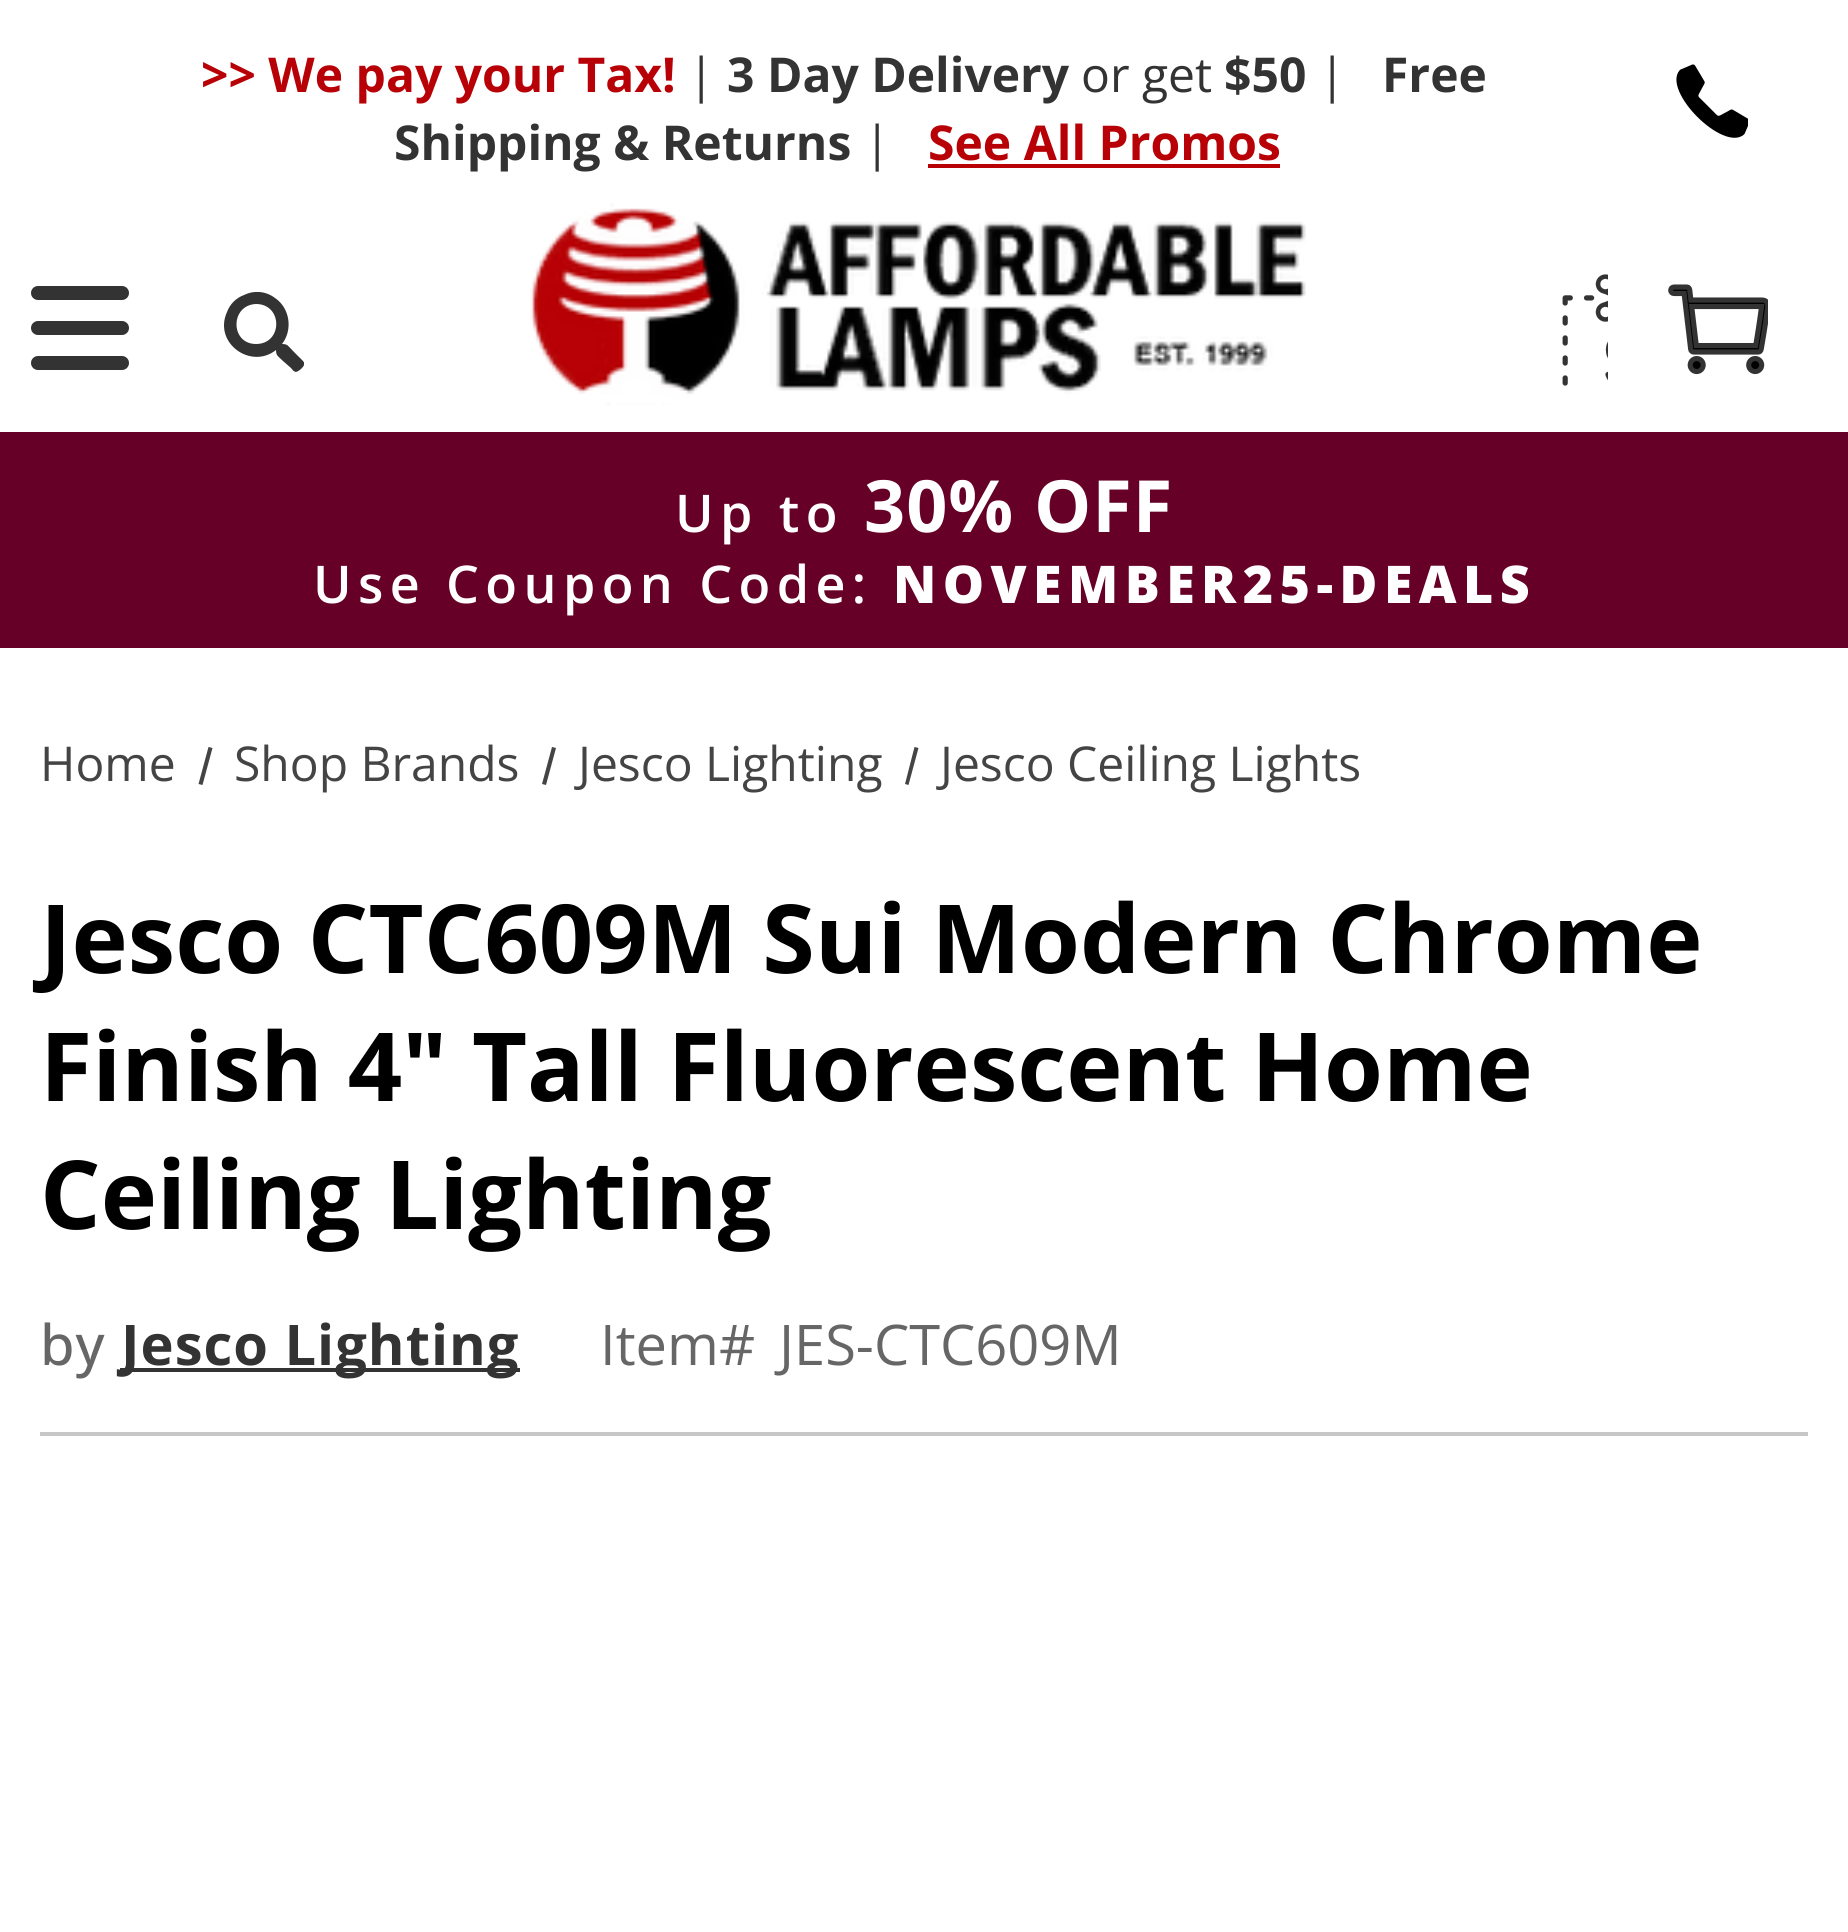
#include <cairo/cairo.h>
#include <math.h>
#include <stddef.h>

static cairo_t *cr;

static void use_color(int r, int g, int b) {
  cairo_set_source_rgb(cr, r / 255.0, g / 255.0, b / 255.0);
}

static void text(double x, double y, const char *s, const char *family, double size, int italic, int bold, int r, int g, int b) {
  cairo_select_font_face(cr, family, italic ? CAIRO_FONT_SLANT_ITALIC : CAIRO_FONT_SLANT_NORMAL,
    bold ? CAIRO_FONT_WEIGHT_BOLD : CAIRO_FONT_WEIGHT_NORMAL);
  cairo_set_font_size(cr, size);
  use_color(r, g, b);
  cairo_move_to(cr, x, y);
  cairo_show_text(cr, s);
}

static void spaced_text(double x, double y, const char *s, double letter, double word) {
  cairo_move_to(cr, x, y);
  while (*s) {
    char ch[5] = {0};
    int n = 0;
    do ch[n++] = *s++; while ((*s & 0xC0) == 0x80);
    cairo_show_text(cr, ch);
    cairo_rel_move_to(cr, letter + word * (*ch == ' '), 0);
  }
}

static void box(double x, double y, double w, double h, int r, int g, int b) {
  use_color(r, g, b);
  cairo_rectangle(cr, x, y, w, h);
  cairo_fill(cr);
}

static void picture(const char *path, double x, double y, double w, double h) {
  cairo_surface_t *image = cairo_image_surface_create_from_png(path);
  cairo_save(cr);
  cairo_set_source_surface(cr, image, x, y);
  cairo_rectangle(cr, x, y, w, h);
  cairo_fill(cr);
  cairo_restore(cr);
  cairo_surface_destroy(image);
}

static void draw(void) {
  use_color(255, 255, 255);
  cairo_paint(cr);
  box(928, 164, 352, 4, 184, 1, 6);
  picture("img_01.png", 1676, 64, 72, 74);
  picture("img_02.png", 31, 286, 98, 84);
  cairo_save(cr);
  cairo_rectangle(cr, 224, 292, 80, 80);
  cairo_clip(cr);
  use_color(51, 51, 51);
  cairo_new_path(cr);
  cairo_move_to(cr, 303, 361);
  cairo_line_to(cr, 293, 351);
  cairo_curve_to(cr, 288, 346, 288, 344, 282, 344);
  cairo_curve_to(cr, 293, 330, 290, 308, 275, 298);
  cairo_curve_to(cr, 266, 291, 254, 290, 244, 295);
  cairo_curve_to(cr, 236, 298, 230, 304, 227, 312);
  cairo_curve_to(cr, 213, 343, 251, 370, 276, 350);
  cairo_curve_to(cr, 276, 356, 278, 356, 283, 361);
  cairo_line_to(cr, 291, 368);
  cairo_curve_to(cr, 295, 373, 296, 373, 301, 369);
  cairo_curve_to(cr, 303, 367, 306, 364, 303, 361);
  cairo_close_path(cr);
  cairo_move_to(cr, 256, 344);
  cairo_curve_to(cr, 230, 344, 230, 305, 256, 304);
  cairo_curve_to(cr, 283, 304, 283, 344, 256, 344);
  cairo_close_path(cr);
  cairo_fill(cr);
  cairo_restore(cr);
  picture("img_03.png", 530, 203, 776, 203);
  picture("img_04.png", 1562, 274, 46, 112);
  picture("img_05.png", 1668, 284, 100, 91);
  box(0, 432, 1848, 216, 102, 0, 38);
  use_color(68, 68, 68);
  cairo_new_path(cr);
  cairo_move_to(cr, 208.5, 747);
  cairo_line_to(cr, 212.5, 748);
  cairo_line_to(cr, 202.5, 785);
  cairo_line_to(cr, 198.5, 784);
  cairo_close_path(cr);
  cairo_fill(cr);
  cairo_new_path(cr);
  cairo_move_to(cr, 552, 747);
  cairo_line_to(cr, 556, 748);
  cairo_line_to(cr, 546, 785);
  cairo_line_to(cr, 542, 784);
  cairo_close_path(cr);
  cairo_fill(cr);
  cairo_new_path(cr);
  cairo_move_to(cr, 914.5, 747);
  cairo_line_to(cr, 918.5, 748);
  cairo_line_to(cr, 908.5, 785);
  cairo_line_to(cr, 905, 784);
  cairo_close_path(cr);
  cairo_fill(cr);
  box(120, 1368, 400, 4, 51, 51, 51);
  box(40, 1432, 1768, 4, 199, 199, 199);
  text(201, 92, ">> We pay your Tax!", "Open Sans", 48, 0, 1, 184, 1, 6);
  text(688, 92, "|", "Open Sans", 48, 0, 0, 51, 51, 51);
  text(727, 92, "3 Day Delivery", "Open Sans", 48, 0, 1, 51, 51, 51);
  text(1081, 92, "or get", "Open Sans", 48, 0, 0, 51, 51, 51);
  text(1224, 92, "$50", "Open Sans", 48, 0, 1, 51, 51, 51);
  text(1319, 92, "|", "Open Sans", 48, 0, 0, 51, 51, 51);
  text(1382, 92, "Free", "Open Sans", 48, 0, 1, 51, 51, 51);
  text(394, 160, "Shipping & Returns", "Open Sans", 48, 0, 1, 51, 51, 51);
  text(864, 160, "|", "Open Sans", 48, 0, 0, 51, 51, 51);
  text(928, 160, "See All Promos", "Open Sans", 48, 0, 1, 184, 1, 6);
  cairo_select_font_face(cr, "Open Sans SemiBold", CAIRO_FONT_SLANT_NORMAL, CAIRO_FONT_WEIGHT_NORMAL);
  cairo_set_font_size(cr, 52);
  use_color(255, 255, 255);
  spaced_text(675, 532, "Up to", 6.4, 0);
  cairo_select_font_face(cr, "Open Sans", CAIRO_FONT_SLANT_NORMAL, CAIRO_FONT_WEIGHT_BOLD);
  cairo_set_font_size(cr, 72);
  spaced_text(864, 532, "30% OFF", 1, 0);
  cairo_select_font_face(cr, "Open Sans SemiBold", CAIRO_FONT_SLANT_NORMAL, CAIRO_FONT_WEIGHT_NORMAL);
  cairo_set_font_size(cr, 52);
  spaced_text(313, 603, "Use Coupon Code:", 6.4, 0);
  cairo_select_font_face(cr, "Open Sans ExtraBold", CAIRO_FONT_SLANT_NORMAL, CAIRO_FONT_WEIGHT_NORMAL);
  spaced_text(893, 603, "NOVEMBER25-DEALS", 6.4, 0);
  text(40, 781, "Home", "Open Sans", 48, 0, 0, 68, 68, 68);
  text(234, 781, "Shop Brands", "Open Sans", 48, 0, 0, 68, 68, 68);
  text(578, 781, "Jesco Lighting", "Open Sans", 48, 0, 0, 68, 68, 68);
  text(940, 781, "Jesco Ceiling Lights", "Open Sans", 48, 0, 0, 68, 68, 68);
  text(40, 973, "Jesco CTC609M Sui Modern Chrome", "Open Sans", 95.25, 0, 1, 0, 0, 0);
  text(40, 1101, "Finish 4\" Tall Fluorescent Home", "Open Sans", 95.25, 0, 1, 0, 0, 0);
  text(40, 1229, "Ceiling Lighting", "Open Sans", 95.25, 0, 1, 0, 0, 0);
  cairo_select_font_face(cr, "Open Sans Medium", CAIRO_FONT_SLANT_NORMAL, CAIRO_FONT_WEIGHT_NORMAL);
  cairo_set_font_size(cr, 56);
  use_color(102, 102, 102);
  spaced_text(40, 1365, "by", 1, 0);
  cairo_select_font_face(cr, "Open Sans", CAIRO_FONT_SLANT_NORMAL, CAIRO_FONT_WEIGHT_BOLD);
  use_color(51, 51, 51);
  spaced_text(121, 1365, "Jesco Lighting", 1, 0);
  text(600, 1365, "Item#", "Open Sans", 56, 0, 0, 102, 102, 102);
  text(779, 1365, "JES-CTC609M", "Open Sans", 56, 0, 0, 102, 102, 102);
}

int main(void) {
  cairo_surface_t *surface = cairo_image_surface_create(CAIRO_FORMAT_RGB24, 1848, 1932);
  cr = cairo_create(surface);
  cairo_font_options_t *options = cairo_font_options_create();
  cairo_font_options_set_hint_metrics(options, CAIRO_HINT_METRICS_OFF);
  cairo_font_options_set_hint_style(options, CAIRO_HINT_STYLE_NONE);
  cairo_set_font_options(cr, options);
  cairo_set_miter_limit(cr, 4);
  draw();
  cairo_surface_write_to_png(surface, "out.png");
  cairo_font_options_destroy(options);
  cairo_destroy(cr);
  cairo_surface_destroy(surface);
  return 0;
}
